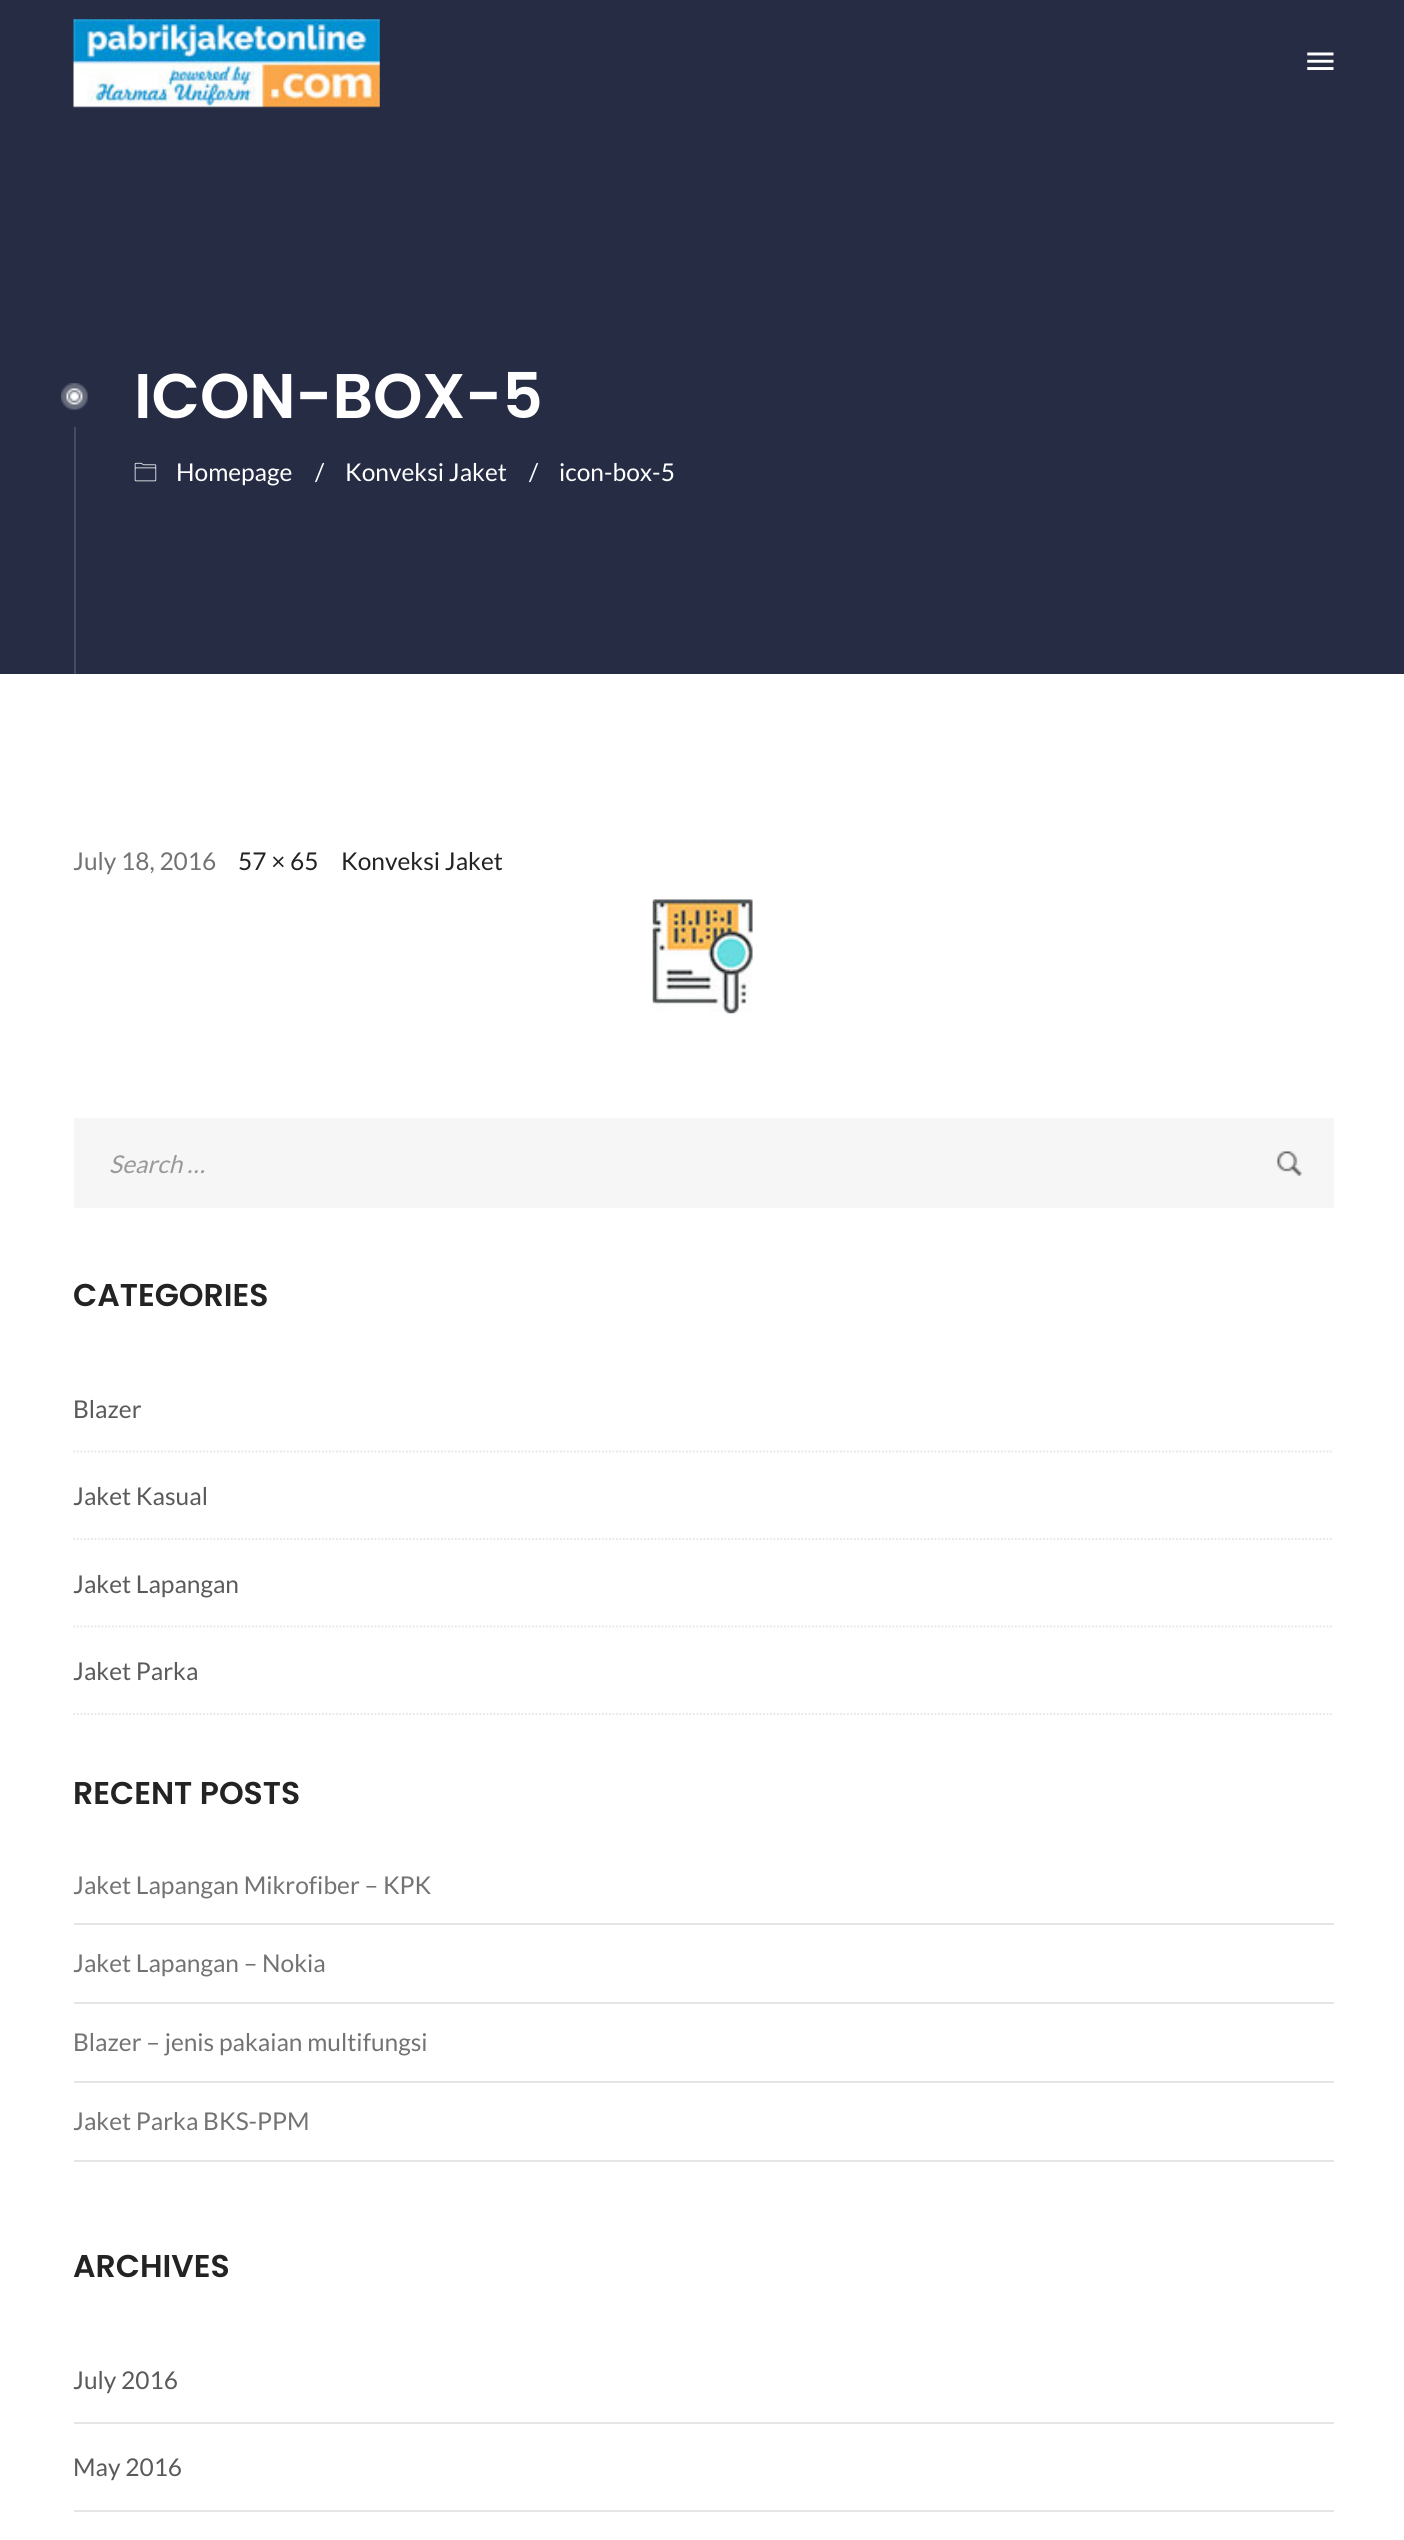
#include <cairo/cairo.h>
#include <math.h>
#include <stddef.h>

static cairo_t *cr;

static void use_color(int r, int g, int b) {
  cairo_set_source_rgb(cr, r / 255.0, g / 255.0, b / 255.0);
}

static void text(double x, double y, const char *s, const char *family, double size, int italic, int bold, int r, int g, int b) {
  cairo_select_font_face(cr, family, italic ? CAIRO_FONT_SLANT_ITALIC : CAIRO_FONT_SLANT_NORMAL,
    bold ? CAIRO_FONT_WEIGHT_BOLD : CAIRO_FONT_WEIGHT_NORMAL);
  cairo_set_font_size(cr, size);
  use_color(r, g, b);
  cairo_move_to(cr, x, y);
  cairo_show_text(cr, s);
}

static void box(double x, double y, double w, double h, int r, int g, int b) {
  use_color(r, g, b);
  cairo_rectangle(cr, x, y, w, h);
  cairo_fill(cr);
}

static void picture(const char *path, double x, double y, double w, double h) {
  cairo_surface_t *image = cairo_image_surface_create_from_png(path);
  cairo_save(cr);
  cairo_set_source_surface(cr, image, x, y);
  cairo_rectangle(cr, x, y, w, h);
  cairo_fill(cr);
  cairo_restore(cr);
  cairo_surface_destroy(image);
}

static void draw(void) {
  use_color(255, 255, 255);
  cairo_paint(cr);
  box(0, 0, 1404, 674, 37, 44, 68);
  picture("img_01.png", 73, 19, 307, 89);
  picture("img_02.png", 1307, 52, 27, 18);
  picture("img_03.png", 61, 383, 27, 27);
  box(74, 427, 2, 247, 69, 75, 96);
  picture("img_04.png", 134, 462, 23, 20);
  picture("img_05.png", 652, 899, 101, 115);
  box(74, 1118, 1260, 90, 246, 246, 246);
  picture("img_06.png", 1276, 1151, 26, 25);
  cairo_new_path(cr);
  cairo_move_to(cr, 73.5, 1451.5);
  cairo_line_to(cr, 1333.5, 1451.5);
  use_color(229, 229, 229);
  cairo_set_line_width(cr, 1.8);
  cairo_set_dash(cr, (double[]){1.75, 1.75}, 2, 0);
  cairo_stroke(cr);
  cairo_new_path(cr);
  cairo_move_to(cr, 73.5, 1539);
  cairo_line_to(cr, 1333.5, 1539);
  cairo_stroke(cr);
  cairo_new_path(cr);
  cairo_move_to(cr, 73.5, 1626.5);
  cairo_line_to(cr, 1333.5, 1626.5);
  cairo_stroke(cr);
  cairo_new_path(cr);
  cairo_move_to(cr, 73.5, 1714);
  cairo_line_to(cr, 1333.5, 1714);
  cairo_stroke(cr);
  box(74, 1923, 1260, 2, 229, 229, 229);
  box(74, 2002, 1260, 2, 229, 229, 229);
  box(74, 2081, 1260, 2, 229, 229, 229);
  box(74, 2160, 1260, 2, 229, 229, 229);
  box(74, 2422, 1260, 2, 229, 229, 229);
  box(74, 2510, 1260, 2, 229, 229, 229);
  text(134, 418, "ICON-BOX-5", "Poppins SemiBold", 63, 0, 0, 255, 255, 255);
  text(176, 481, "Homepage", "Lato", 24.5, 0, 0, 255, 255, 255);
  text(315, 481, "/", "Lato", 24.5, 0, 0, 255, 255, 255);
  text(345, 481, "Konveksi Jaket", "Lato", 24.5, 0, 0, 255, 255, 255);
  text(529, 481, "/", "Lato", 24.5, 0, 0, 255, 255, 255);
  text(559, 481, "icon-box-5", "Lato", 24.5, 0, 0, 255, 255, 255);
  text(73, 870, "July 18, 2016", "Lato", 24.5, 0, 0, 115, 115, 115);
  text(238, 870, "57 × 65", "Lato", 24.5, 0, 0, 35, 35, 35);
  text(341, 870, "Konveksi Jaket", "Lato", 24.5, 0, 0, 35, 35, 35);
  text(109, 1173, "Search …", "Lato", 24.5, 1, 0, 153, 153, 153);
  text(73, 1306, "CATEGORIES", "Poppins SemiBold", 31.5, 0, 0, 35, 35, 35);
  text(73, 1418, "Blazer", "Lato", 24.5, 0, 0, 90, 90, 90);
  text(73, 1505, "Jaket Kasual", "Lato", 24.5, 0, 0, 90, 90, 90);
  text(73, 1593, "Jaket Lapangan", "Lato", 24.5, 0, 0, 90, 90, 90);
  text(73, 1680, "Jaket Parka", "Lato", 24.5, 0, 0, 90, 90, 90);
  text(73, 1804, "RECENT POSTS", "Poppins SemiBold", 31.5, 0, 0, 35, 35, 35);
  text(73, 1894, "Jaket Lapangan Mikrofiber – KPK", "Lato", 24.5, 0, 0, 115, 115, 115);
  text(73, 1972, "Jaket Lapangan – Nokia", "Lato", 24.5, 0, 0, 115, 115, 115);
  text(73, 2051, "Blazer – jenis pakaian multifungsi", "Lato", 24.5, 0, 0, 115, 115, 115);
  text(73, 2130, "Jaket Parka BKS-PPM", "Lato", 24.5, 0, 0, 115, 115, 115);
  text(73, 2277, "ARCHIVES", "Poppins SemiBold", 31.5, 0, 0, 35, 35, 35);
  text(73, 2389, "July 2016", "Lato", 24.5, 0, 0, 90, 90, 90);
  text(73, 2476, "May 2016", "Lato", 24.5, 0, 0, 90, 90, 90);
}

int main(void) {
  cairo_surface_t *surface = cairo_image_surface_create(CAIRO_FORMAT_RGB24, 1404, 2540);
  cr = cairo_create(surface);
  cairo_font_options_t *options = cairo_font_options_create();
  cairo_font_options_set_hint_metrics(options, CAIRO_HINT_METRICS_OFF);
  cairo_font_options_set_hint_style(options, CAIRO_HINT_STYLE_NONE);
  cairo_set_font_options(cr, options);
  cairo_set_miter_limit(cr, 4);
  draw();
  cairo_surface_write_to_png(surface, "out.png");
  cairo_font_options_destroy(options);
  cairo_destroy(cr);
  cairo_surface_destroy(surface);
  return 0;
}
